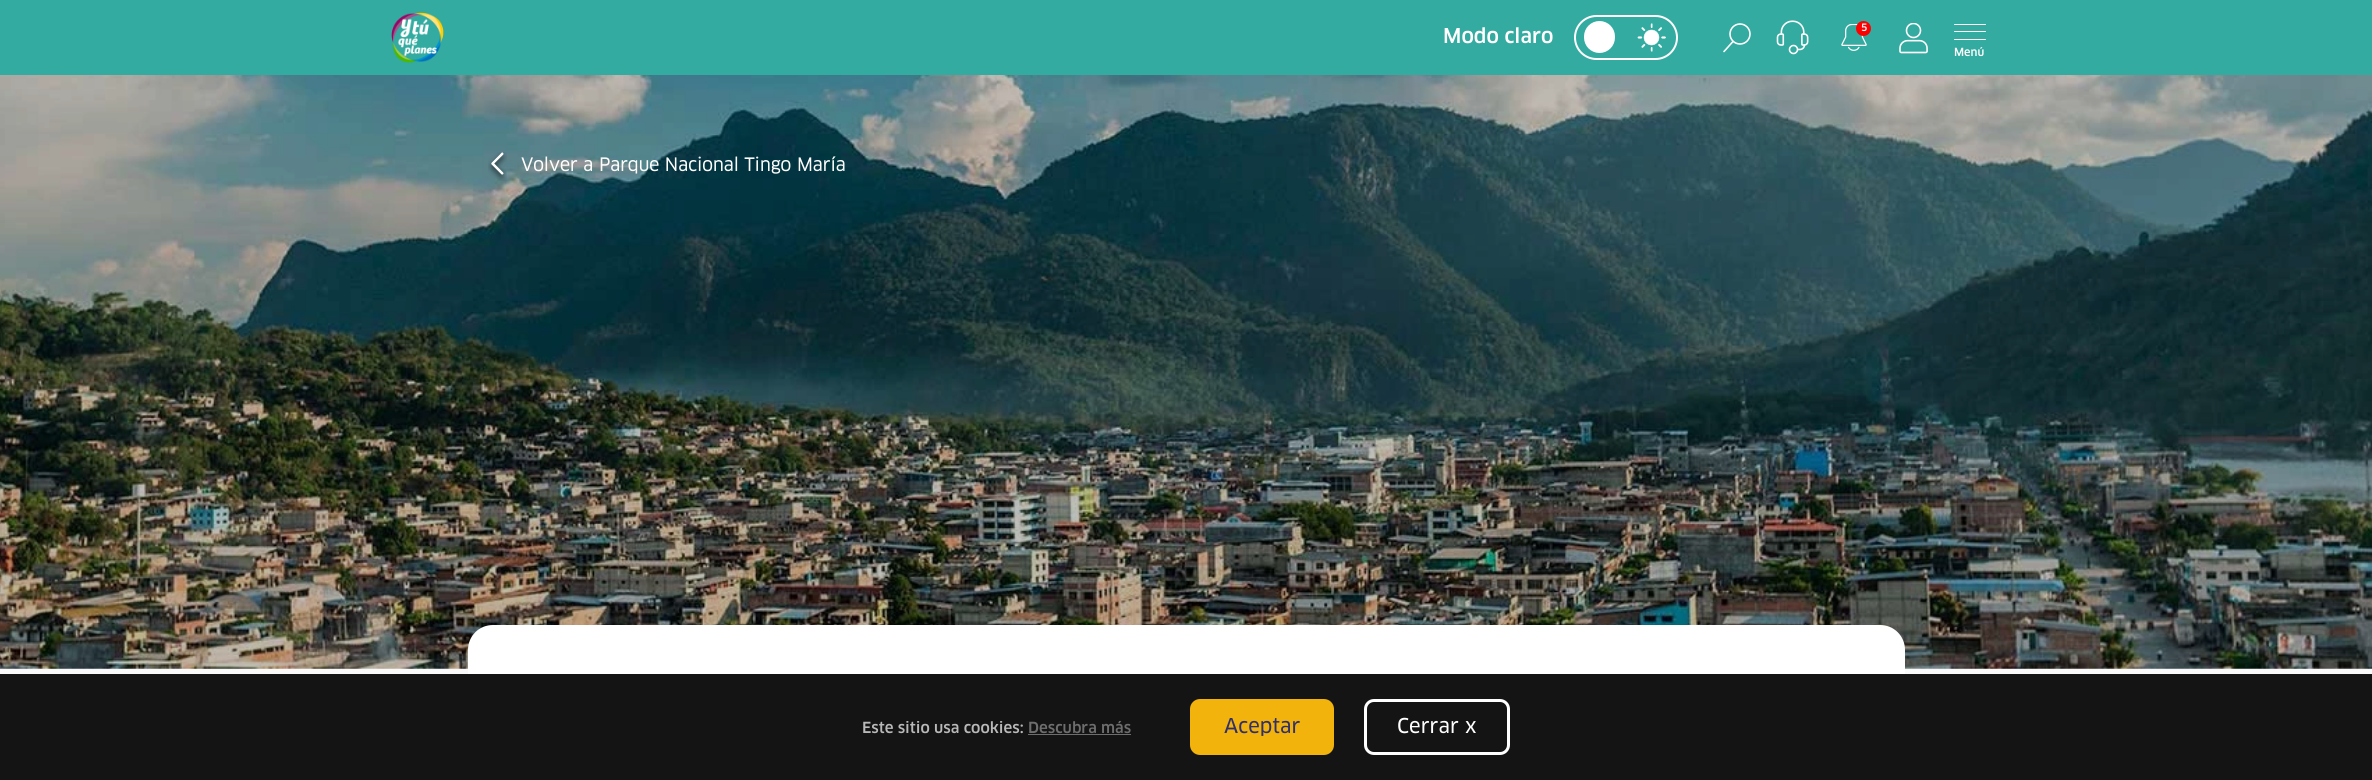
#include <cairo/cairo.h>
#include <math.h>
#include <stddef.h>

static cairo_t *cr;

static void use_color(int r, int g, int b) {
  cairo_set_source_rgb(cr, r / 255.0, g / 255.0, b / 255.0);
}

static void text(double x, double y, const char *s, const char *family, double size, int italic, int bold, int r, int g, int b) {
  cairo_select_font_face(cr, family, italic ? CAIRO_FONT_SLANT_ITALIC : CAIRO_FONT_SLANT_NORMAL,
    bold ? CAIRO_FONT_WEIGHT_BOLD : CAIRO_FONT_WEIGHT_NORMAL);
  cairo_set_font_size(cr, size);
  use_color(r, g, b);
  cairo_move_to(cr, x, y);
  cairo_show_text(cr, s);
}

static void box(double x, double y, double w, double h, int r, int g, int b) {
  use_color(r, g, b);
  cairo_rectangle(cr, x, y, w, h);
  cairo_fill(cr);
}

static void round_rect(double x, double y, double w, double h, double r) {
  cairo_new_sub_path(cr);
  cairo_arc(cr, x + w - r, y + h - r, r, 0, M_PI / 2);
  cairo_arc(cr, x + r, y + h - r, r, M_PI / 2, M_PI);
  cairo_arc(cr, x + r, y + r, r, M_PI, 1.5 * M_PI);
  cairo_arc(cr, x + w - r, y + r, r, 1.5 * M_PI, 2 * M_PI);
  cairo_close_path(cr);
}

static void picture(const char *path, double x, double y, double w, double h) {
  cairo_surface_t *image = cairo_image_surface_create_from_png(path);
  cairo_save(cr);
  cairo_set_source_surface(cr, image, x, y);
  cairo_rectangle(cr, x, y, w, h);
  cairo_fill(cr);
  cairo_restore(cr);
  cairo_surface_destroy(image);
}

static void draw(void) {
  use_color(255, 255, 255);
  cairo_paint(cr);
  box(0, 0, 2372, 75, 51, 171, 160);
  picture("img_01.png", 391, 12, 53, 51);
  round_rect(1575, 16, 102, 43, 21.5);
  use_color(255, 255, 255);
  cairo_stroke(cr);
  picture("img_03.png", 1589, 25, 1, 1);
  round_rect(1586, 23, 27, 28, 13.5);
  cairo_fill_preserve(cr);
  cairo_set_line_width(cr, 4);
  cairo_stroke(cr);
  picture("img_02.png", 1637, 23, 29, 29);
  cairo_new_path(cr);
  cairo_move_to(cr, 1733, 41.5);
  cairo_line_to(cr, 1724, 51.5);
  cairo_set_line_width(cr, 1.6);
  cairo_set_line_cap(cr, CAIRO_LINE_CAP_ROUND);
  cairo_stroke(cr);
  cairo_arc(cr, 1740, 34, 10, 0, 2 * M_PI);
  cairo_set_line_cap(cr, CAIRO_LINE_CAP_BUTT);
  cairo_stroke(cr);
  picture("img_04.png", 1776, 20, 33, 35);
  picture("img_05.png", 1841, 24, 26, 27);
  use_color(255, 0, 0);
  cairo_arc(cr, 1863.5, 28.5, 7.5, 0, 2 * M_PI);
  cairo_fill(cr);
  picture("img_06.png", 1899, 23, 29, 31);
  use_color(255, 255, 255);
  round_rect(1954, 24, 32, 1, 0.5);
  cairo_fill(cr);
  round_rect(1954, 31, 32, 1, 0.5);
  cairo_fill(cr);
  round_rect(1954, 39, 32, 1, 0.5);
  cairo_fill(cr);
  picture("img_07.png", 0, 75, 2372, 594);
  picture("img_08.png", 488, 152, 19, 29);
  box(0, 669, 2372, 5, 249, 249, 249);
  box(468, 669, 1437, 5, 255, 255, 255);
  cairo_new_path(cr);
  cairo_move_to(cr, 493, 625);
  cairo_line_to(cr, 1880, 625);
  cairo_curve_to(cr, 1894, 625, 1905, 636, 1905, 650);
  cairo_line_to(cr, 1905, 669);
  cairo_line_to(cr, 468, 669);
  cairo_line_to(cr, 468, 650);
  cairo_curve_to(cr, 468, 636, 479, 625, 493, 625);
  cairo_close_path(cr);
  cairo_fill(cr);
  box(0, 674, 2372, 106, 20, 20, 20);
  box(1028, 734, 103, 1, 110, 110, 110);
  use_color(242, 179, 12);
  round_rect(1191.5, 700.5, 141, 53, 8.5);
  cairo_fill_preserve(cr);
  cairo_set_line_width(cr, 3);
  cairo_stroke(cr);
  round_rect(1365.5, 700.5, 143, 53, 8.5);
  use_color(255, 255, 255);
  cairo_stroke(cr);
  text(1443, 43, "Modo claro", "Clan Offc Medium", 20, 0, 0, 255, 255, 255);
  text(1861, 31, "5", "Clan Offc Medium", 10, 0, 0, 255, 255, 255);
  text(1954, 56, "Menú", "Clan Offc Medium", 11, 0, 0, 255, 255, 255);
  text(521, 171, "Volver a Parque Nacional Tingo María", "Clan Offc", 17.5, 0, 1, 255, 255, 255);
  text(862, 733, "Este sitio usa cookies:", "Clan Offc Medium", 15, 0, 0, 185, 185, 185);
  text(1028, 733, "Descubra más", "Clan Offc Medium", 15, 0, 0, 110, 110, 110);
  text(1224, 733, "Aceptar", "Clan Offc", 20, 0, 0, 47, 47, 109);
  text(1397, 733, "Cerrar x", "Clan Offc", 20, 0, 0, 255, 255, 255);
}

int main(void) {
  cairo_surface_t *surface = cairo_image_surface_create(CAIRO_FORMAT_RGB24, 2372, 780);
  cr = cairo_create(surface);
  cairo_font_options_t *options = cairo_font_options_create();
  cairo_font_options_set_hint_metrics(options, CAIRO_HINT_METRICS_OFF);
  cairo_font_options_set_hint_style(options, CAIRO_HINT_STYLE_NONE);
  cairo_set_font_options(cr, options);
  cairo_set_miter_limit(cr, 4);
  draw();
  cairo_surface_write_to_png(surface, "out.png");
  cairo_font_options_destroy(options);
  cairo_destroy(cr);
  cairo_surface_destroy(surface);
  return 0;
}
